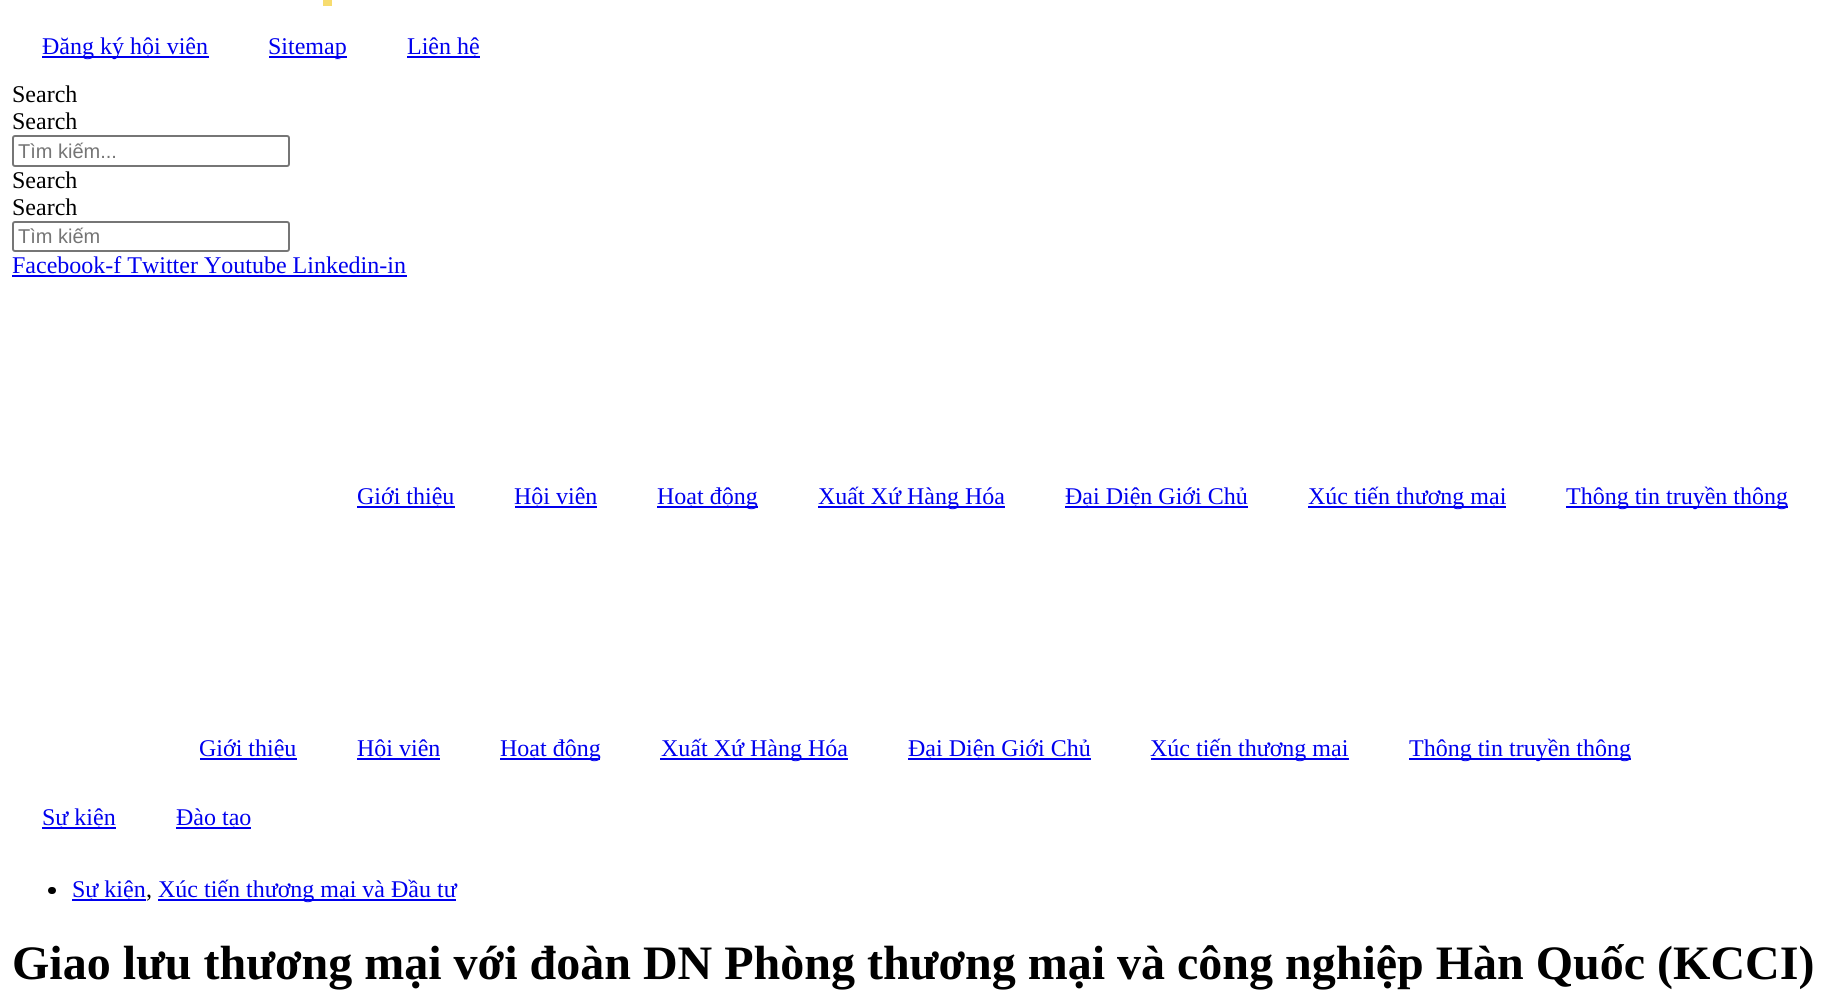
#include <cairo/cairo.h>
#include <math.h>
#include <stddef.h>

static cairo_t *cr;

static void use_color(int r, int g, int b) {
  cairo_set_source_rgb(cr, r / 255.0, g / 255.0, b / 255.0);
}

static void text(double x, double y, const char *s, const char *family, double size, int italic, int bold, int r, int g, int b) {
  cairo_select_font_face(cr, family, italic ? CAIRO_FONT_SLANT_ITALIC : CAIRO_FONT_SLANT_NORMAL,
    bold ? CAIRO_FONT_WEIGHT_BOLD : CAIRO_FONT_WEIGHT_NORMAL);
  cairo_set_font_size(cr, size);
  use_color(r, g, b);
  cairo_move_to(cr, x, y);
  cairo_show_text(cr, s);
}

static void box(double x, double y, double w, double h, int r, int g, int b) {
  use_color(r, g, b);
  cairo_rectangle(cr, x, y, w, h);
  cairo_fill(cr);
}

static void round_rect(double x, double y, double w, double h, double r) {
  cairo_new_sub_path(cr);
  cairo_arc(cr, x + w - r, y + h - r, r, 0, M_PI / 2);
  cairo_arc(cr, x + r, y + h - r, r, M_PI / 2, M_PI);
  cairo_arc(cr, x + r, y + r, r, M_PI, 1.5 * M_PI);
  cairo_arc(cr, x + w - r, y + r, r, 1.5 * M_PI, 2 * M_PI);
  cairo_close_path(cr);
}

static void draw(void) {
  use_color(255, 255, 255);
  cairo_paint(cr);
  box(323, 0, 9, 6, 247, 220, 111);
  box(42, 56, 167, 2, 0, 0, 238);
  box(269, 56, 78, 2, 0, 0, 238);
  box(407, 56, 73, 2, 0, 0, 238);
  round_rect(13, 136, 276, 30, 2);
  use_color(118, 118, 118);
  cairo_stroke(cr);
  round_rect(13, 222, 276, 29, 2);
  cairo_stroke(cr);
  box(12, 275, 395, 2, 0, 0, 238);
  box(357, 506, 98, 2, 0, 0, 238);
  box(515, 506, 82, 2, 0, 0, 238);
  box(657, 506, 101, 2, 0, 0, 238);
  box(818, 506, 187, 2, 0, 0, 238);
  box(1065, 506, 183, 2, 0, 0, 238);
  box(1308, 506, 198, 2, 0, 0, 238);
  box(1566, 506, 222, 2, 0, 0, 238);
  box(200, 758, 97, 2, 0, 0, 238);
  box(357, 758, 83, 2, 0, 0, 238);
  box(500, 758, 100, 2, 0, 0, 238);
  box(660, 758, 188, 2, 0, 0, 238);
  box(908, 758, 183, 2, 0, 0, 238);
  box(1151, 758, 198, 2, 0, 0, 238);
  box(1409, 758, 222, 2, 0, 0, 238);
  box(42, 827, 74, 2, 0, 0, 238);
  box(176, 827, 75, 2, 0, 0, 238);
  use_color(0, 0, 0);
  round_rect(48, 887, 8, 7, 3.5);
  cairo_fill(cr);
  box(72, 899, 74, 2, 0, 0, 238);
  box(158, 899, 298, 2, 0, 0, 238);
  text(42, 54, "Đăng ký hội viên", "Liberation Serif", 24, 0, 0, 0, 0, 238);
  text(268, 54, "Sitemap", "Liberation Serif", 24, 0, 0, 0, 0, 238);
  text(407, 54, "Liên hệ", "Liberation Serif", 24, 0, 0, 0, 0, 238);
  text(12, 102, "Search", "Liberation Serif", 24, 0, 0, 0, 0, 0);
  text(12, 129, "Search", "Liberation Serif", 24, 0, 0, 0, 0, 0);
  text(18, 158, "Tìm kiếm...", "Liberation Sans", 20, 0, 0, 117, 117, 117);
  text(12, 188, "Search", "Liberation Serif", 24, 0, 0, 0, 0, 0);
  text(12, 215, "Search", "Liberation Serif", 24, 0, 0, 0, 0, 0);
  text(18, 243, "Tìm kiếm", "Liberation Sans", 20, 0, 0, 117, 117, 117);
  text(12, 273, "Facebook-f Twitter Youtube Linkedin-in", "Liberation Serif", 24, 0, 0, 0, 0, 238);
  text(357, 504, "Giới thiệu", "Liberation Serif", 24, 0, 0, 0, 0, 238);
  text(514, 504, "Hội viên", "Liberation Serif", 24, 0, 0, 0, 0, 238);
  text(657, 504, "Hoạt động", "Liberation Serif", 24, 0, 0, 0, 0, 238);
  text(818, 504, "Xuất Xứ Hàng Hóa", "Liberation Serif", 24, 0, 0, 0, 0, 238);
  text(1065, 504, "Đại Diện Giới Chủ", "Liberation Serif", 24, 0, 0, 0, 0, 238);
  text(1308, 504, "Xúc tiến thương mại", "Liberation Serif", 24, 0, 0, 0, 0, 238);
  text(1566, 504, "Thông tin truyền thông", "Liberation Serif", 24, 0, 0, 0, 0, 238);
  text(199, 756, "Giới thiệu", "Liberation Serif", 24, 0, 0, 0, 0, 238);
  text(357, 756, "Hội viên", "Liberation Serif", 24, 0, 0, 0, 0, 238);
  text(500, 756, "Hoạt động", "Liberation Serif", 24, 0, 0, 0, 0, 238);
  text(661, 756, "Xuất Xứ Hàng Hóa", "Liberation Serif", 24, 0, 0, 0, 0, 238);
  text(908, 756, "Đại Diện Giới Chủ", "Liberation Serif", 24, 0, 0, 0, 0, 238);
  text(1150, 756, "Xúc tiến thương mại", "Liberation Serif", 24, 0, 0, 0, 0, 238);
  text(1409, 756, "Thông tin truyền thông", "Liberation Serif", 24, 0, 0, 0, 0, 238);
  text(42, 825, "Sự kiện", "Liberation Serif", 24, 0, 0, 0, 0, 238);
  text(176, 825, "Đào tạo", "Liberation Serif", 24, 0, 0, 0, 0, 238);
  text(72, 897, "Sự kiện", "Liberation Serif", 24, 0, 0, 0, 0, 238);
  text(158, 897, "Xúc tiến thương mại và Đầu tư", "Liberation Serif", 24, 0, 0, 0, 0, 238);
  text(146, 897, ",", "Liberation Serif", 24, 0, 0, 0, 0, 0);
  text(12, 979, "Giao lưu thương mại với đoàn DN Phòng thương mại và công nghiệp Hàn Quốc (KCCI)", "Liberation Serif", 48, 0, 1, 0, 0, 0);
}

int main(void) {
  cairo_surface_t *surface = cairo_image_surface_create(CAIRO_FORMAT_RGB24, 1829, 996);
  cr = cairo_create(surface);
  cairo_font_options_t *options = cairo_font_options_create();
  cairo_font_options_set_hint_metrics(options, CAIRO_HINT_METRICS_OFF);
  cairo_font_options_set_hint_style(options, CAIRO_HINT_STYLE_NONE);
  cairo_set_font_options(cr, options);
  cairo_set_miter_limit(cr, 4);
  draw();
  cairo_surface_write_to_png(surface, "out.png");
  cairo_font_options_destroy(options);
  cairo_destroy(cr);
  cairo_surface_destroy(surface);
  return 0;
}
